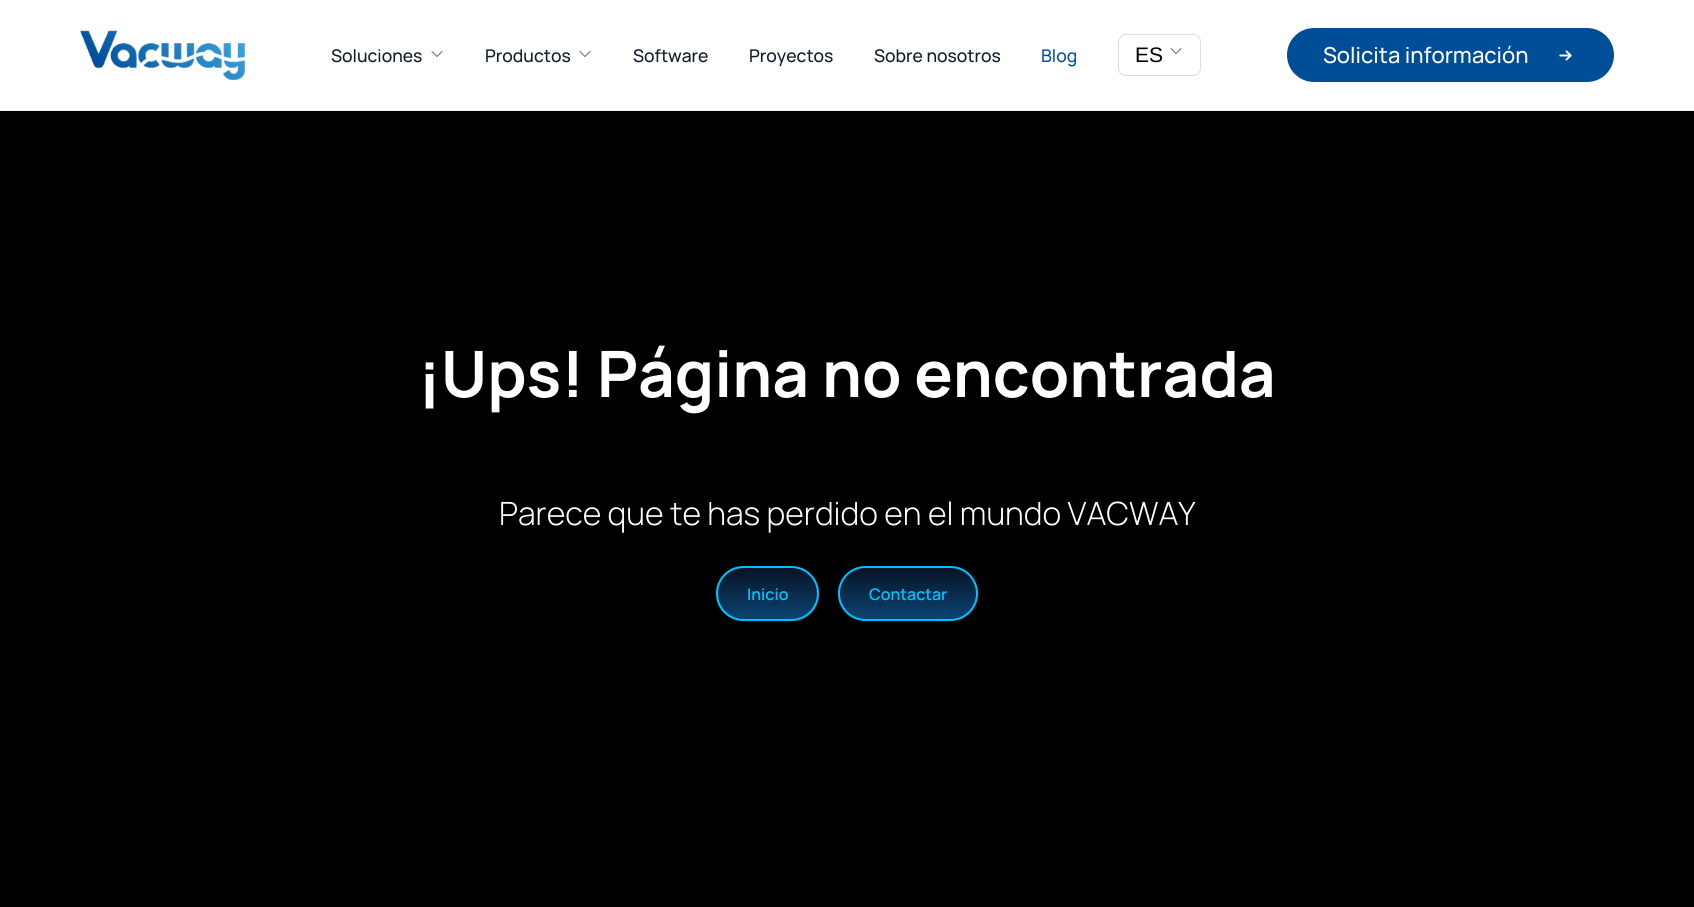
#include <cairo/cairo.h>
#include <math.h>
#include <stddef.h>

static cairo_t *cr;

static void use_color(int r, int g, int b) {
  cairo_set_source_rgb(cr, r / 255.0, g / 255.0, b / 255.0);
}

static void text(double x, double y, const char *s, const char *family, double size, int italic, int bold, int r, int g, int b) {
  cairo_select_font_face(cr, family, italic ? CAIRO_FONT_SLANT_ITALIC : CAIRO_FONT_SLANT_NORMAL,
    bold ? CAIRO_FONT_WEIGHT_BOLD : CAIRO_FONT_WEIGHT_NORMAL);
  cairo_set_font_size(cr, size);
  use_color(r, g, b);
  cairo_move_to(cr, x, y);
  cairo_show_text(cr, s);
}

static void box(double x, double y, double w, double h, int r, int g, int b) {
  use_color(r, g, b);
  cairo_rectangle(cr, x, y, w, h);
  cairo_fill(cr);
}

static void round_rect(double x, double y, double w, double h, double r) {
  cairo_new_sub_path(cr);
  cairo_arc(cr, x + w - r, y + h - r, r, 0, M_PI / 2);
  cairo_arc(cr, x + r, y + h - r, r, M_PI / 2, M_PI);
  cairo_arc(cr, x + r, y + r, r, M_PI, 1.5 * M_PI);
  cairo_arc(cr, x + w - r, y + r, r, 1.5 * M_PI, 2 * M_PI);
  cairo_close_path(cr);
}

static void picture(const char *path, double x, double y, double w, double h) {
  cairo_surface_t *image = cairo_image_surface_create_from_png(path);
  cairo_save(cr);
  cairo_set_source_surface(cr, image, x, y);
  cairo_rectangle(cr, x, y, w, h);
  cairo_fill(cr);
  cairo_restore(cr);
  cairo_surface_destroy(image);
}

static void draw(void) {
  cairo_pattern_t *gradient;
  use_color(255, 255, 255);
  cairo_paint(cr);
  box(0, 110, 1694, 1, 238, 238, 238);
  picture("img_01.png", 80, 30, 165, 50);
  cairo_new_path(cr);
  cairo_move_to(cr, 442, 51.5);
  cairo_line_to(cr, 437, 56.5);
  cairo_line_to(cr, 432, 51.5);
  use_color(107, 107, 107);
  cairo_set_line_width(cr, 1);
  cairo_set_line_cap(cr, CAIRO_LINE_CAP_ROUND);
  cairo_set_line_join(cr, CAIRO_LINE_JOIN_ROUND);
  cairo_stroke(cr);
  cairo_new_path(cr);
  cairo_move_to(cr, 590, 51.5);
  cairo_line_to(cr, 585, 56.5);
  cairo_line_to(cr, 580, 51.5);
  cairo_stroke(cr);
  round_rect(1118.5, 34.5, 82, 41, 7.5);
  use_color(221, 221, 221);
  cairo_set_line_cap(cr, CAIRO_LINE_CAP_BUTT);
  cairo_set_line_join(cr, CAIRO_LINE_JOIN_MITER);
  cairo_stroke(cr);
  cairo_new_path(cr);
  cairo_move_to(cr, 1181, 48.5);
  cairo_line_to(cr, 1176, 53.5);
  cairo_line_to(cr, 1171, 48.5);
  use_color(107, 107, 107);
  cairo_set_line_cap(cr, CAIRO_LINE_CAP_ROUND);
  cairo_set_line_join(cr, CAIRO_LINE_JOIN_ROUND);
  cairo_stroke(cr);
  use_color(0, 77, 152);
  round_rect(1287, 28, 327, 54, 27);
  cairo_fill(cr);
  picture("img_02.png", 1559, 50, 13, 11);
  box(0, 111, 1694, 796, 0, 0, 0);
  cairo_save(cr);
  round_rect(716, 566, 103, 55, 27.5);
  cairo_clip(cr);
  gradient = cairo_pattern_create_linear(768, 568, 768, 619);
  cairo_pattern_add_color_stop_rgba(gradient, 0, 0.031, 0.075, 0.149, 1);
  cairo_pattern_add_color_stop_rgba(gradient, 1, 0.043, 0.263, 0.443, 1);
  cairo_set_source(cr, gradient);
  cairo_pattern_destroy(gradient);
  cairo_rectangle(cr, 716, 568, 103, 51);
  cairo_fill(cr);
  cairo_restore(cr);
  round_rect(717, 567, 101, 53, 26.5);
  use_color(0, 194, 255);
  cairo_set_line_width(cr, 2);
  cairo_set_line_cap(cr, CAIRO_LINE_CAP_BUTT);
  cairo_set_line_join(cr, CAIRO_LINE_JOIN_MITER);
  cairo_stroke(cr);
  cairo_save(cr);
  round_rect(838, 566, 140, 55, 27.5);
  cairo_clip(cr);
  gradient = cairo_pattern_create_linear(908, 568, 908, 619);
  cairo_pattern_add_color_stop_rgba(gradient, 0, 0.031, 0.075, 0.149, 1);
  cairo_pattern_add_color_stop_rgba(gradient, 1, 0.043, 0.263, 0.443, 1);
  cairo_set_source(cr, gradient);
  cairo_pattern_destroy(gradient);
  cairo_rectangle(cr, 838, 568, 140, 51);
  cairo_fill(cr);
  cairo_restore(cr);
  round_rect(839, 567, 138, 53, 26.5);
  cairo_stroke(cr);
  text(331, 62, "Soluciones", "Manrope Medium", 17.5, 0, 0, 14, 28, 47);
  text(485, 62, "Productos", "Manrope Medium", 17.5, 0, 0, 14, 28, 47);
  text(633, 62, "Software", "Manrope Medium", 17.5, 0, 0, 14, 28, 47);
  text(749, 62, "Proyectos", "Manrope Medium", 17.5, 0, 0, 14, 28, 47);
  text(874, 62, "Sobre nosotros", "Manrope Medium", 17.5, 0, 0, 14, 28, 47);
  text(1041, 62, "Blog", "Manrope Medium", 17.5, 0, 0, 7, 82, 155);
  text(1135, 62, "ES", "Liberation Sans", 21, 0, 0, 0, 0, 0);
  text(1323, 63, "Solicita información", "Manrope Medium", 22, 0, 0, 255, 255, 255);
  text(418, 397, "¡Ups! Página no encontrada", "Manrope", 64, 0, 1, 255, 255, 255);
  text(499, 525, "Parece que te has perdido en el mundo VACWAY", "Manrope Light", 32, 0, 0, 255, 255, 255);
  text(747, 600, "Inicio", "Manrope SemiBold", 16, 0, 0, 0, 194, 255);
  text(869, 600, "Contactar", "Manrope SemiBold", 16, 0, 0, 0, 194, 255);
}

int main(void) {
  cairo_surface_t *surface = cairo_image_surface_create(CAIRO_FORMAT_RGB24, 1694, 907);
  cr = cairo_create(surface);
  cairo_font_options_t *options = cairo_font_options_create();
  cairo_font_options_set_hint_metrics(options, CAIRO_HINT_METRICS_OFF);
  cairo_font_options_set_hint_style(options, CAIRO_HINT_STYLE_NONE);
  cairo_set_font_options(cr, options);
  cairo_set_miter_limit(cr, 4);
  draw();
  cairo_surface_write_to_png(surface, "out.png");
  cairo_font_options_destroy(options);
  cairo_destroy(cr);
  cairo_surface_destroy(surface);
  return 0;
}
